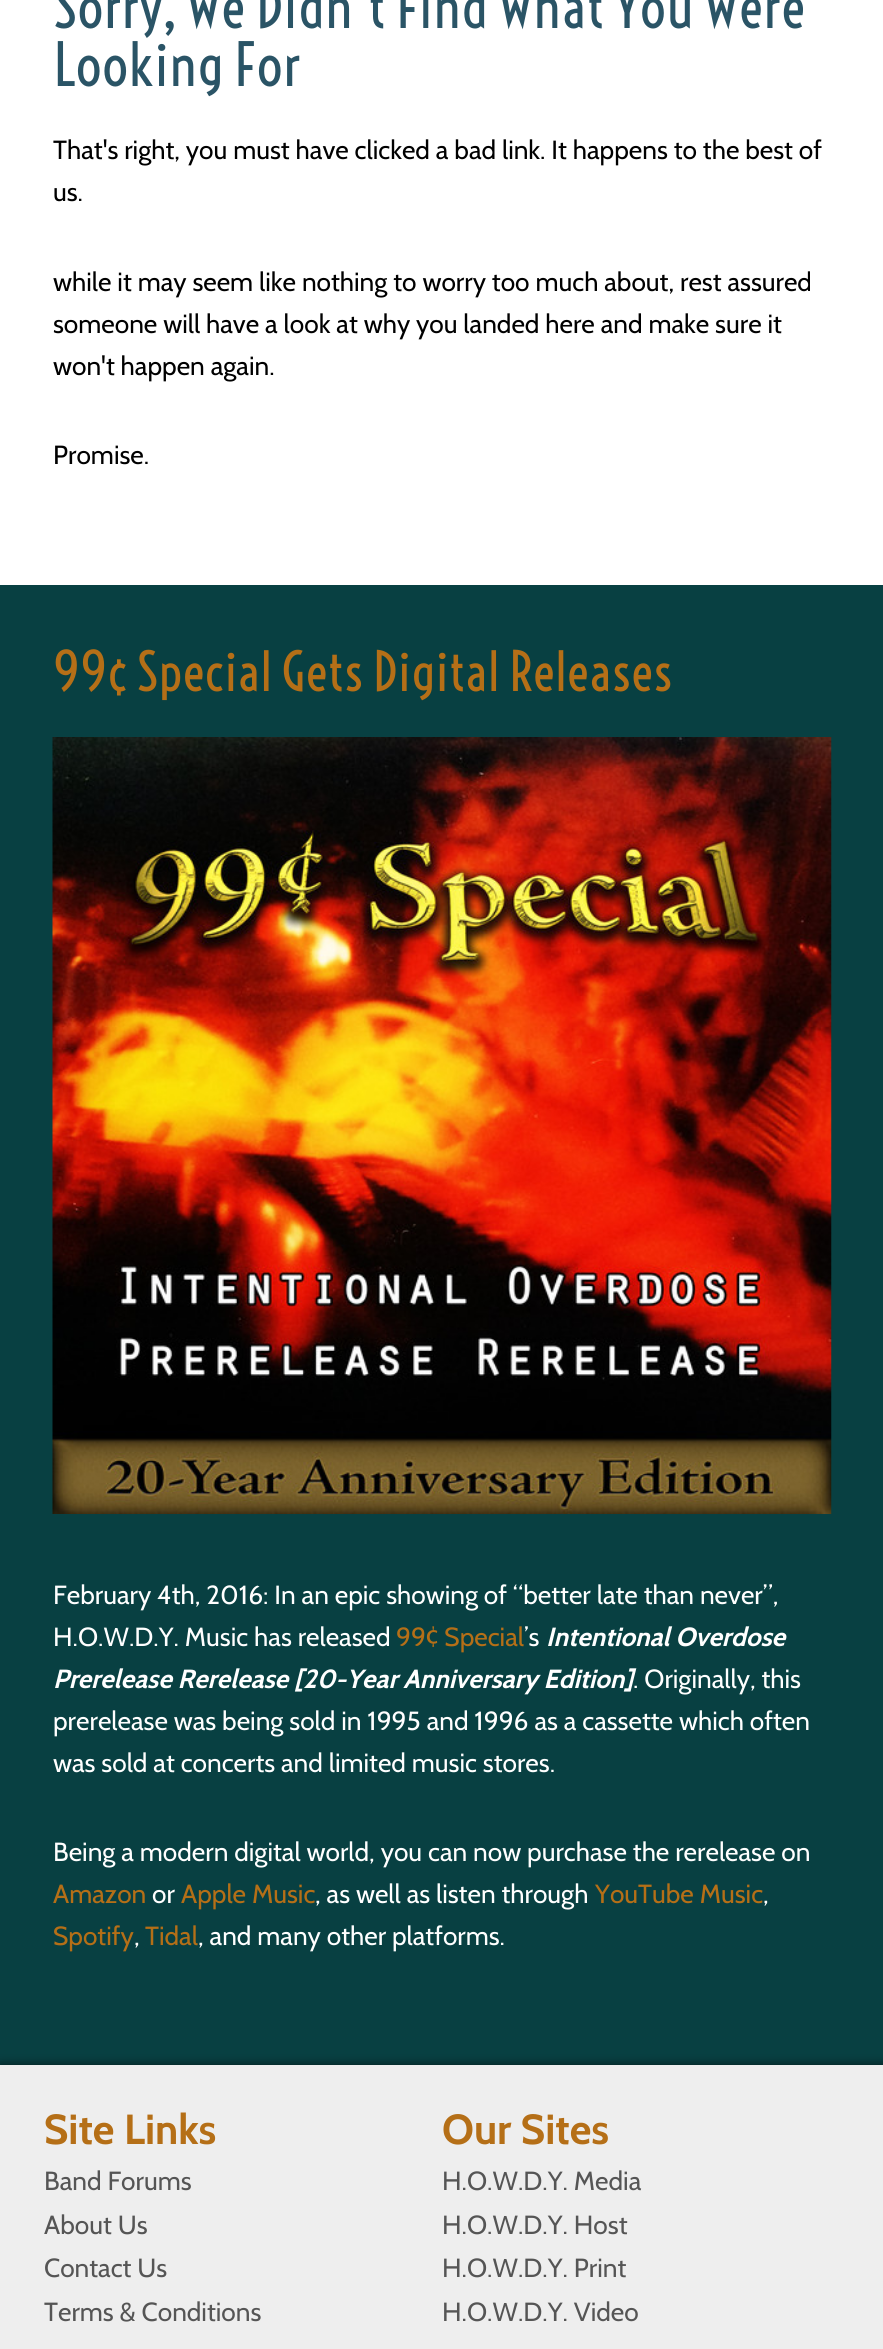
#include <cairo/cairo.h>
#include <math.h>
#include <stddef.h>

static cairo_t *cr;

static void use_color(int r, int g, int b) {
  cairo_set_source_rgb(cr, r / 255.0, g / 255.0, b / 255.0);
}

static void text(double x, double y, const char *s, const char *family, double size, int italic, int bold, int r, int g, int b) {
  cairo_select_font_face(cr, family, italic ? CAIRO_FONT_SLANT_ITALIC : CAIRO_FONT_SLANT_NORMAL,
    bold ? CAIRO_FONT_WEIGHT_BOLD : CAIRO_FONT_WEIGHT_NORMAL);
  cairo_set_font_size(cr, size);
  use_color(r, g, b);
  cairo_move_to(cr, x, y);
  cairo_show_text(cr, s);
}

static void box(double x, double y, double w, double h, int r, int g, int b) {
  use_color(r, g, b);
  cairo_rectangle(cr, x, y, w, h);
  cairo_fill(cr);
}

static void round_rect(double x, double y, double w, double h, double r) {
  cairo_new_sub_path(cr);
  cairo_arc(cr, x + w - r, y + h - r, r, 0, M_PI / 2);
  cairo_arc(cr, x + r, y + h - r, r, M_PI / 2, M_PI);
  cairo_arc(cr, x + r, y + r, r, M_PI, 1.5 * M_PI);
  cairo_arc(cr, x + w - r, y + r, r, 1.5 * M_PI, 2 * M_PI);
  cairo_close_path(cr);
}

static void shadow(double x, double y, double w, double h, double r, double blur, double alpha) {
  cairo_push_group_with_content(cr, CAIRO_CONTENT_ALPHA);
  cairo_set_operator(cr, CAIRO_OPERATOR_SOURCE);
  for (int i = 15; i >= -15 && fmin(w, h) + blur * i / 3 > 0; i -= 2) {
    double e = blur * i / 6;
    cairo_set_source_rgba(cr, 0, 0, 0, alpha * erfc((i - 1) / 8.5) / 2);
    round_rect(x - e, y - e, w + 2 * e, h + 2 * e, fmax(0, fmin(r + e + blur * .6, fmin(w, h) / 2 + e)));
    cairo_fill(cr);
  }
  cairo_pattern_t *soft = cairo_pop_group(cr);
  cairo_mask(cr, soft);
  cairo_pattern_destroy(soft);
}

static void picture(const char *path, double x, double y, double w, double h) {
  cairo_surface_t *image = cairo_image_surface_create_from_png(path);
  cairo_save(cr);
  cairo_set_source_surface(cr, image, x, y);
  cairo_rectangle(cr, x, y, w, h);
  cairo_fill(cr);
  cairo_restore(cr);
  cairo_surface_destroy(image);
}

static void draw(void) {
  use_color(255, 255, 255);
  cairo_paint(cr);
  box(0, 585, 883, 1480, 8, 64, 66);
  picture("img_01.png", 52, 737, 780, 777);
  use_color(0, 0, 0);
  shadow(0, 2065, 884, 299, 0, 5, 0.6);
  box(0, 2065, 883, 284, 238, 238, 238);
  text(53, 28, "Sorry, We Didn't Find What You Were", "Voltaire", 57.75, 0, 0, 42, 84, 102);
  text(53, 86, "Looking For", "Voltaire", 57.75, 0, 0, 42, 84, 102);
  text(53, 159, "That's right, you must have clicked a bad link. It happens to the best of", "Cabin", 26.25, 0, 0, 0, 0, 0);
  text(53, 201, "us.", "Cabin", 26.25, 0, 0, 0, 0, 0);
  text(53, 291, "while it may seem like nothing to worry too much about, rest assured", "Cabin", 26.25, 0, 0, 0, 0, 0);
  text(53, 333, "someone will have a look at why you landed here and make sure it", "Cabin", 26.25, 0, 0, 0, 0, 0);
  text(53, 375, "won't happen again.", "Cabin", 26.25, 0, 0, 0, 0, 0);
  text(53, 464, "Promise.", "Cabin", 26.25, 0, 0, 0, 0, 0);
  text(53, 691, "99¢ Special Gets Digital Releases", "Voltaire", 52.5, 0, 0, 181, 111, 23);
  text(53, 1604, "February 4th, 2016: In an epic showing of “better late than never”,", "Cabin", 26.25, 0, 0, 255, 255, 255);
  text(53, 1646, "H.O.W.D.Y. Music has released", "Cabin", 26.25, 0, 0, 255, 255, 255);
  text(396, 1646, "99¢ Special", "Cabin", 26.25, 0, 0, 181, 111, 23);
  text(524, 1646, "’s", "Cabin", 26.25, 0, 0, 255, 255, 255);
  text(546, 1646, "Intentional Overdose", "Cabin", 26.25, 1, 1, 255, 255, 255);
  text(53, 1688, "Prerelease Rerelease [20-Year Anniversary Edition]", "Cabin", 26.25, 1, 1, 255, 255, 255);
  text(633, 1688, ". Originally, this", "Cabin", 26.25, 0, 0, 255, 255, 255);
  text(53, 1730, "prerelease was being sold in 1995 and 1996 as a cassette which often", "Cabin", 26.25, 0, 0, 255, 255, 255);
  text(53, 1772, "was sold at concerts and limited music stores.", "Cabin", 26.25, 0, 0, 255, 255, 255);
  text(53, 1861, "Being a modern digital world, you can now purchase the rerelease on", "Cabin", 26.25, 0, 0, 255, 255, 255);
  text(53, 1903, "Amazon", "Cabin", 26.25, 0, 0, 181, 111, 23);
  text(152, 1903, "or", "Cabin", 26.25, 0, 0, 255, 255, 255);
  text(181, 1903, "Apple Music", "Cabin", 26.25, 0, 0, 181, 111, 23);
  text(315, 1903, ", as well as listen through", "Cabin", 26.25, 0, 0, 255, 255, 255);
  text(595, 1903, "YouTube Music", "Cabin", 26.25, 0, 0, 181, 111, 23);
  text(763, 1903, ",", "Cabin", 26.25, 0, 0, 255, 255, 255);
  text(53, 1945, "Spotify", "Cabin", 26.25, 0, 0, 181, 111, 23);
  text(134, 1945, ",", "Cabin", 26.25, 0, 0, 255, 255, 255);
  text(145, 1945, "Tidal", "Cabin", 26.25, 0, 0, 181, 111, 23);
  text(198, 1945, ", and many other platforms.", "Cabin", 26.25, 0, 0, 255, 255, 255);
  text(44, 2144, "Site Links", "Cabin", 42, 0, 1, 181, 111, 23);
  text(44, 2190, "Band Forums", "Cabin", 26.25, 0, 0, 85, 85, 85);
  text(44, 2234, "About Us", "Cabin", 26.25, 0, 0, 85, 85, 85);
  text(44, 2277, "Contact Us", "Cabin", 26.25, 0, 0, 85, 85, 85);
  text(44, 2321, "Terms & Conditions", "Cabin", 26.25, 0, 0, 85, 85, 85);
  text(442, 2144, "Our Sites", "Cabin", 42, 0, 1, 181, 111, 23);
  text(442, 2190, "H.O.W.D.Y. Media", "Cabin", 26.25, 0, 0, 85, 85, 85);
  text(442, 2234, "H.O.W.D.Y. Host", "Cabin", 26.25, 0, 0, 85, 85, 85);
  text(442, 2277, "H.O.W.D.Y. Print", "Cabin", 26.25, 0, 0, 85, 85, 85);
  text(442, 2321, "H.O.W.D.Y. Video", "Cabin", 26.25, 0, 0, 85, 85, 85);
}

int main(void) {
  cairo_surface_t *surface = cairo_image_surface_create(CAIRO_FORMAT_RGB24, 883, 2349);
  cr = cairo_create(surface);
  cairo_font_options_t *options = cairo_font_options_create();
  cairo_font_options_set_hint_metrics(options, CAIRO_HINT_METRICS_OFF);
  cairo_font_options_set_hint_style(options, CAIRO_HINT_STYLE_NONE);
  cairo_set_font_options(cr, options);
  cairo_set_miter_limit(cr, 4);
  draw();
  cairo_surface_write_to_png(surface, "out.png");
  cairo_font_options_destroy(options);
  cairo_destroy(cr);
  cairo_surface_destroy(surface);
  return 0;
}
